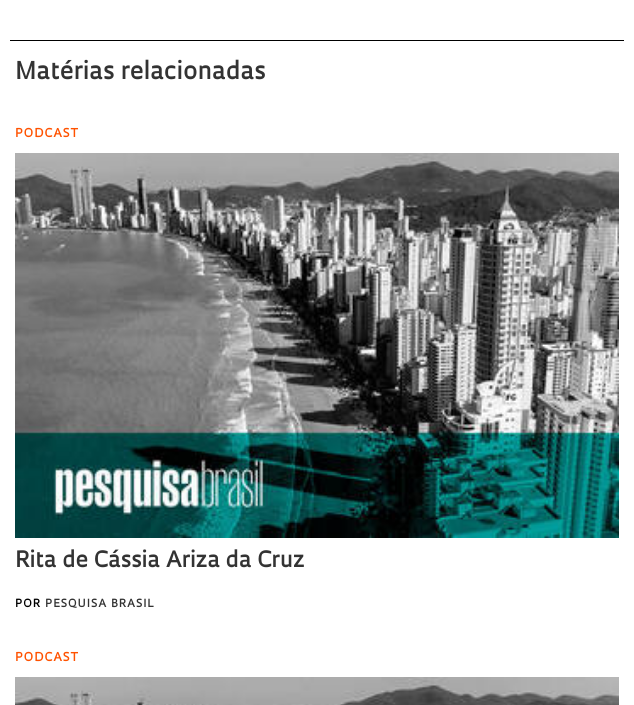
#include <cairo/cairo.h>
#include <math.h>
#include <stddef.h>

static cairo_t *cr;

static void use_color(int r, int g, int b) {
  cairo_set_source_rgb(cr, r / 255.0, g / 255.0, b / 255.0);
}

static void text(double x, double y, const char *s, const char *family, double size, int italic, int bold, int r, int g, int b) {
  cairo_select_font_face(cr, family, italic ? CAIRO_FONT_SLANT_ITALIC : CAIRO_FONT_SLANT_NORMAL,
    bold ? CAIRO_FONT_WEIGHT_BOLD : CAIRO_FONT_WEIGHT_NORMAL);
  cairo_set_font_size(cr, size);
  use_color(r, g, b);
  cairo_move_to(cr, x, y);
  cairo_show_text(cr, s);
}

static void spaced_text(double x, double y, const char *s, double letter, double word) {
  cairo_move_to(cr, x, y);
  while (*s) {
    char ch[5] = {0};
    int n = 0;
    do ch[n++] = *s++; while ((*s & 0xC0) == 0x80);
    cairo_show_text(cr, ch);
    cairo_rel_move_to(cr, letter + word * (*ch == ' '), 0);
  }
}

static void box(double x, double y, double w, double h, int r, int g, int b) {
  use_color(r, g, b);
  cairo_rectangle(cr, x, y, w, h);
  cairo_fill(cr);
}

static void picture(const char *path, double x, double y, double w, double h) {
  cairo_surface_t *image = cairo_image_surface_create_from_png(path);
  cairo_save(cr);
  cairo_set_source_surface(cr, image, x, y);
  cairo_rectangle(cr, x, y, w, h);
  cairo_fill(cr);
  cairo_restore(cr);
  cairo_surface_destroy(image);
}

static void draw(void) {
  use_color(255, 255, 255);
  cairo_paint(cr);
  box(10, 40, 614, 1, 0, 0, 0);
  picture("img_01.png", 15, 153, 604, 385);
  picture("img_02.png", 15, 677, 604, 28);
  text(15, 79, "Matérias relacionadas", "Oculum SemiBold", 24, 0, 0, 51, 51, 51);
  cairo_set_font_size(cr, 12);
  use_color(255, 82, 0);
  spaced_text(15, 137, "PODCAST", 1, 0);
  text(15, 567, "Rita de Cássia Ariza da Cruz", "Oculum SemiBold", 22, 0, 0, 51, 51, 51);
  cairo_set_font_size(cr, 11);
  use_color(0, 0, 0);
  spaced_text(15, 607, "POR", 1, 0);
  use_color(51, 51, 51);
  spaced_text(45, 607, "PESQUISA BRASIL", 1, 0);
  cairo_set_font_size(cr, 12);
  use_color(255, 82, 0);
  spaced_text(15, 661, "PODCAST", 1, 0);
}

int main(void) {
  cairo_surface_t *surface = cairo_image_surface_create(CAIRO_FORMAT_RGB24, 634, 705);
  cr = cairo_create(surface);
  cairo_font_options_t *options = cairo_font_options_create();
  cairo_font_options_set_hint_metrics(options, CAIRO_HINT_METRICS_OFF);
  cairo_font_options_set_hint_style(options, CAIRO_HINT_STYLE_NONE);
  cairo_set_font_options(cr, options);
  cairo_set_miter_limit(cr, 4);
  draw();
  cairo_surface_write_to_png(surface, "out.png");
  cairo_font_options_destroy(options);
  cairo_destroy(cr);
  cairo_surface_destroy(surface);
  return 0;
}
